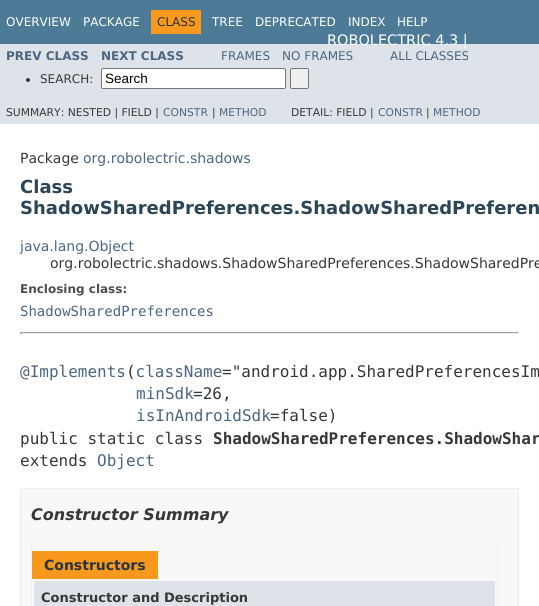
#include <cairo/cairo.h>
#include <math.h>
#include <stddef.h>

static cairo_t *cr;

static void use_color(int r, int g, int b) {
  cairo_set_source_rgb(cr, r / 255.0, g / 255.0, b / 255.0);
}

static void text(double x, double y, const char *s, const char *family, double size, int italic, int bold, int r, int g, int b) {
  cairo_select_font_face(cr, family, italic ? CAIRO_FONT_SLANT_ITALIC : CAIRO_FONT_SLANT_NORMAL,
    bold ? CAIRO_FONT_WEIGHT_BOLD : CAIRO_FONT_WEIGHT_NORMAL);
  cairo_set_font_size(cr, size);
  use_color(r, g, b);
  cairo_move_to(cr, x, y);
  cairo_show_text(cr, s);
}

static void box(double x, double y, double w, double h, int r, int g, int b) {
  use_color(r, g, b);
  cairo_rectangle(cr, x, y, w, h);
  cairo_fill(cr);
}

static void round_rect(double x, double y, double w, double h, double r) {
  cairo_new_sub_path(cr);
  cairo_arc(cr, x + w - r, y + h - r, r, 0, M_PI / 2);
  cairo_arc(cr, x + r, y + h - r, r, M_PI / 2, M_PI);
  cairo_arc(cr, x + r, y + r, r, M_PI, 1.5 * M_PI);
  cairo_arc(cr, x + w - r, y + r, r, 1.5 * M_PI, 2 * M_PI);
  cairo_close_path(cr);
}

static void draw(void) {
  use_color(255, 255, 255);
  cairo_paint(cr);
  box(0, 0, 539, 44, 77, 122, 151);
  box(151, 10, 50, 24, 248, 152, 29);
  box(0, 44, 539, 80, 222, 227, 233);
  use_color(53, 56, 51);
  cairo_arc(cr, 28, 80, 2, 0, 2 * M_PI);
  cairo_fill(cr);
  use_color(255, 255, 255);
  round_rect(101.5, 68.5, 184, 20, 1.5);
  cairo_fill_preserve(cr);
  use_color(118, 118, 118);
  cairo_set_line_width(cr, 1);
  cairo_stroke(cr);
  use_color(239, 239, 239);
  round_rect(290.5, 68.5, 18, 20, 1.5);
  cairo_fill_preserve(cr);
  use_color(118, 118, 118);
  cairo_stroke(cr);
  box(20, 332, 499, 1, 159, 159, 159);
  box(518, 332, 1, 2, 238, 238, 238);
  box(20, 333, 499, 1, 238, 238, 238);
  box(20, 332, 1, 2, 159, 159, 159);
  use_color(248, 248, 248);
  cairo_rectangle(cr, 20.5, 488.5, 498, 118);
  cairo_fill_preserve(cr);
  use_color(237, 237, 237);
  cairo_stroke(cr);
  box(497, 541, 1, 65, 238, 238, 238);
  box(31, 541, 1, 65, 238, 238, 238);
  box(32, 551, 126, 28, 248, 152, 29);
  box(34, 581, 461, 25, 222, 227, 233);
  text(6, 26, "OVERVIEW", "DejaVu Sans", 12, 0, 0, 255, 255, 255);
  text(83, 26, "PACKAGE", "DejaVu Sans", 12, 0, 0, 255, 255, 255);
  text(157, 26, "CLASS", "DejaVu Sans", 12, 0, 0, 37, 52, 65);
  text(212, 26, "TREE", "DejaVu Sans", 12, 0, 0, 255, 255, 255);
  text(255, 26, "DEPRECATED", "DejaVu Sans", 12, 0, 0, 255, 255, 255);
  text(348, 26, "INDEX", "DejaVu Sans", 12, 0, 0, 255, 255, 255);
  text(397, 26, "HELP", "DejaVu Sans", 12, 0, 0, 255, 255, 255);
  text(327, 45, "ROBOLECTRIC 4.3 |", "DejaVu Sans", 14.5, 0, 0, 255, 255, 255);
  text(6, 60, "PREV CLASS", "DejaVu Sans", 12, 0, 1, 74, 103, 130);
  text(101, 60, "NEXT CLASS", "DejaVu Sans", 12, 0, 1, 74, 103, 130);
  text(221, 60, "FRAMES", "DejaVu Sans", 12, 0, 0, 74, 103, 130);
  text(282, 60, "NO FRAMES", "DejaVu Sans", 12, 0, 0, 74, 103, 130);
  text(390, 60, "ALL CLASSES", "DejaVu Sans", 12, 0, 0, 74, 103, 130);
  text(40, 83, "SEARCH:", "DejaVu Sans", 12, 0, 0, 53, 56, 51);
  text(105, 83, "Search", "Liberation Sans", 13.5, 0, 0, 0, 0, 0);
  text(6, 116, "SUMMARY: NESTED | FIELD |", "DejaVu Sans", 10.75, 0, 0, 53, 56, 51);
  text(163, 116, "CONSTR", "DejaVu Sans", 10.75, 0, 0, 74, 103, 130);
  text(212, 116, "|", "DejaVu Sans", 10.75, 0, 0, 53, 56, 51);
  text(219, 116, "METHOD", "DejaVu Sans", 10.75, 0, 0, 74, 103, 130);
  text(291, 116, "DETAIL: FIELD |", "DejaVu Sans", 10.75, 0, 0, 53, 56, 51);
  text(378, 116, "CONSTR", "DejaVu Sans", 10.75, 0, 0, 74, 103, 130);
  text(426, 116, "|", "DejaVu Sans", 10.75, 0, 0, 53, 56, 51);
  text(433, 116, "METHOD", "DejaVu Sans", 10.75, 0, 0, 74, 103, 130);
  text(20, 163, "Package", "DejaVu Sans", 14, 0, 0, 53, 56, 51);
  text(83, 163, "org.robolectric.shadows", "DejaVu Sans", 14, 0, 0, 74, 103, 130);
  text(20, 193, "Class", "DejaVu Sans", 18, 0, 1, 44, 69, 87);
  text(20, 214, "ShadowSharedPreferences.ShadowSharedPreferen", "DejaVu Sans", 18, 0, 1, 44, 69, 87);
  text(20, 251, "java.lang.Object", "DejaVu Sans", 14, 0, 0, 74, 103, 130);
  text(50, 268, "org.robolectric.shadows.ShadowSharedPreferences.ShadowSharedPre", "DejaVu Sans", 14, 0, 0, 53, 56, 51);
  text(20, 293, "Enclosing class:", "DejaVu Sans", 12, 0, 1, 78, 78, 78);
  text(20, 316, "ShadowSharedPreferences", "DejaVu Sans Mono", 14, 0, 0, 74, 103, 130);
  text(20, 377, "@Implements className", "DejaVu Sans Mono", 16, 0, 0, 74, 103, 130);
  text(126, 377, "(", "DejaVu Sans Mono", 16, 0, 0, 53, 56, 51);
  text(222, 377, "=\"android.app.SharedPreferencesIm", "DejaVu Sans Mono", 16, 0, 0, 53, 56, 51);
  text(136, 399, "minSdk", "DejaVu Sans Mono", 16, 0, 0, 74, 103, 130);
  text(193, 399, "=26,", "DejaVu Sans Mono", 16, 0, 0, 53, 56, 51);
  text(136, 421, "isInAndroidSdk", "DejaVu Sans Mono", 16, 0, 0, 74, 103, 130);
  text(270, 421, "=false)", "DejaVu Sans Mono", 16, 0, 0, 53, 56, 51);
  text(20, 444, "public static class", "DejaVu Sans Mono", 16, 0, 0, 53, 56, 51);
  text(213, 444, "ShadowSharedPreferences.ShadowShar", "DejaVu Sans Mono", 16, 0, 1, 53, 56, 51);
  text(20, 466, "extends", "DejaVu Sans Mono", 16, 0, 0, 53, 56, 51);
  text(97, 466, "Object", "DejaVu Sans Mono", 16, 0, 0, 74, 103, 130);
  text(31, 520, "Constructor Summary", "DejaVu Sans", 16, 1, 1, 53, 56, 51);
  text(44, 570, "Constructors", "DejaVu Sans", 14, 0, 1, 37, 52, 65);
  text(41, 602, "Constructor and Description", "DejaVu Sans", 13, 0, 1, 53, 56, 51);
}

int main(void) {
  cairo_surface_t *surface = cairo_image_surface_create(CAIRO_FORMAT_RGB24, 539, 606);
  cr = cairo_create(surface);
  cairo_font_options_t *options = cairo_font_options_create();
  cairo_font_options_set_hint_metrics(options, CAIRO_HINT_METRICS_OFF);
  cairo_font_options_set_hint_style(options, CAIRO_HINT_STYLE_NONE);
  cairo_set_font_options(cr, options);
  cairo_set_miter_limit(cr, 4);
  draw();
  cairo_surface_write_to_png(surface, "out.png");
  cairo_font_options_destroy(options);
  cairo_destroy(cr);
  cairo_surface_destroy(surface);
  return 0;
}
